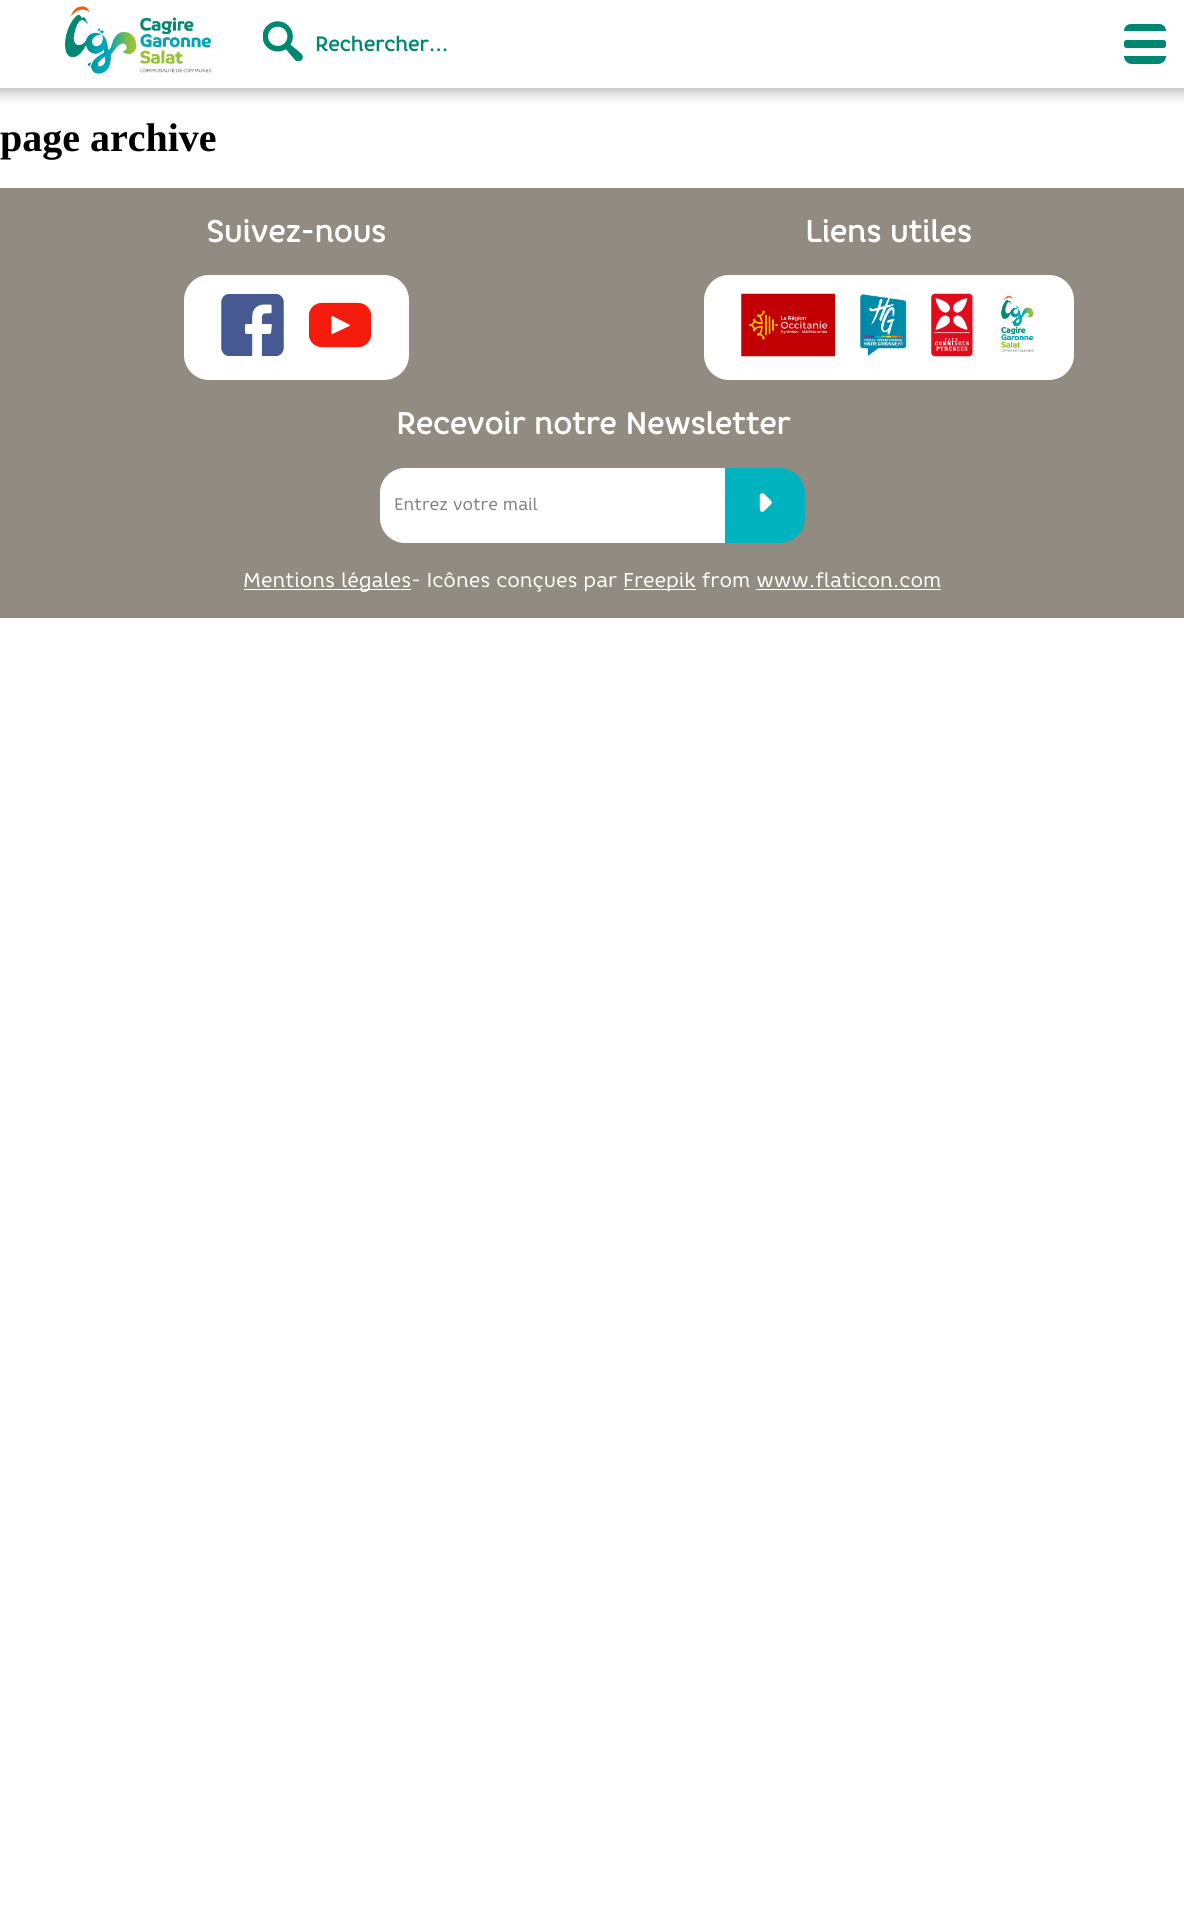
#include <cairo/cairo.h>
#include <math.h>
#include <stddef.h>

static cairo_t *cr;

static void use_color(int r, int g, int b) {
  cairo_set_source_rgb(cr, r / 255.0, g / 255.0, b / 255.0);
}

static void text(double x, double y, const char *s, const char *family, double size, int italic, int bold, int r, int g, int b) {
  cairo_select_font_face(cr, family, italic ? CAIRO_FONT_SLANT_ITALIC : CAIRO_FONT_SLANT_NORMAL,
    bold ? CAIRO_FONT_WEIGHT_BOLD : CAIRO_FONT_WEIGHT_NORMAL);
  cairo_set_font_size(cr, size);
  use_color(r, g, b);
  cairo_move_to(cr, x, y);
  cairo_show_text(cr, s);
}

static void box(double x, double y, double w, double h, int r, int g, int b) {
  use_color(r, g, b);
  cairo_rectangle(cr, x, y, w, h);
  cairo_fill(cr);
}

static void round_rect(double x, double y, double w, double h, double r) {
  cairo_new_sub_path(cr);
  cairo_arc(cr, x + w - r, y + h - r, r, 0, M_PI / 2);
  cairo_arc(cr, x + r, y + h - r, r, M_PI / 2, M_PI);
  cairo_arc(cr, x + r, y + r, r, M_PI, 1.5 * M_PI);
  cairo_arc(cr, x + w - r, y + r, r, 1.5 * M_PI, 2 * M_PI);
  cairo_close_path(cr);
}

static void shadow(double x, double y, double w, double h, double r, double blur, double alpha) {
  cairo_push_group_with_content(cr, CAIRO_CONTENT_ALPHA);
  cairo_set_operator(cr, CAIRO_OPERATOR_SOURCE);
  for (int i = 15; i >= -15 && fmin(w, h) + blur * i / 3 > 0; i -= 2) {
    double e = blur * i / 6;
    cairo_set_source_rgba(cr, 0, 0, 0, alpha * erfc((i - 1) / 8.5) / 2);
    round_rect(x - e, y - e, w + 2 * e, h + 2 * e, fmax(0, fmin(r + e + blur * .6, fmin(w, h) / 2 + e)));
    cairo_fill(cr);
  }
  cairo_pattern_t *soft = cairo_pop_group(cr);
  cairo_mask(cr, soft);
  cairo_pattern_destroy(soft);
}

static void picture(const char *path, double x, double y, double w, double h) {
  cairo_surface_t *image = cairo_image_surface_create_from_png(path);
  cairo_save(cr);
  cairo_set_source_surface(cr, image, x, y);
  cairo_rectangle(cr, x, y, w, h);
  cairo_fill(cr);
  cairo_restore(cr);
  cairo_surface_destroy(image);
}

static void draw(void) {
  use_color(255, 255, 255);
  cairo_paint(cr);
  use_color(0, 0, 0);
  shadow(-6, -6, 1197, 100, 0, 6, 0.24);
  box(0, 0, 1184, 88, 255, 255, 255);
  picture("img_01.png", 65, 6, 147, 68);
  picture("img_02.png", 263, 21, 40, 40);
  use_color(0, 135, 112);
  cairo_new_path(cr);
  cairo_move_to(cr, 1131, 24);
  cairo_line_to(cr, 1159, 24);
  cairo_curve_to(cr, 1163, 24, 1166, 27, 1166, 31);
  cairo_line_to(cr, 1124, 31);
  cairo_curve_to(cr, 1124, 27, 1127, 24, 1131, 24);
  cairo_close_path(cr);
  cairo_fill(cr);
  round_rect(1124, 40, 42, 8, 2.5);
  cairo_fill(cr);
  cairo_new_path(cr);
  cairo_move_to(cr, 1124, 56);
  cairo_line_to(cr, 1166, 56);
  cairo_curve_to(cr, 1166, 60.5, 1162.5, 64, 1158, 64);
  cairo_line_to(cr, 1132, 64);
  cairo_curve_to(cr, 1127.5, 64, 1124, 60.5, 1124, 56);
  cairo_close_path(cr);
  cairo_fill(cr);
  box(0, 188, 1184, 430, 146, 139, 129);
  use_color(255, 255, 255);
  round_rect(184, 275, 225, 105, 25);
  cairo_fill(cr);
  picture("img_03.png", 221, 294, 63, 62);
  picture("img_04.png", 309, 302, 62, 46);
  round_rect(704, 275, 370, 105, 25);
  cairo_fill(cr);
  picture("img_05.png", 741, 293, 94, 64);
  picture("img_06.png", 860, 294, 47, 62);
  picture("img_07.png", 931, 293, 42, 64);
  picture("img_08.png", 1001, 296, 33, 56);
  cairo_new_path(cr);
  cairo_move_to(cr, 405, 468.5);
  cairo_line_to(cr, 724.5, 468.5);
  cairo_line_to(cr, 724.5, 542.5);
  cairo_line_to(cr, 405, 542.5);
  cairo_curve_to(cr, 391.5, 542.5, 380.5, 531.5, 380.5, 518);
  cairo_line_to(cr, 380.5, 493);
  cairo_curve_to(cr, 380.5, 479.5, 391.5, 468.5, 405, 468.5);
  cairo_close_path(cr);
  cairo_fill_preserve(cr);
  cairo_set_line_width(cr, 1);
  cairo_stroke(cr);
  use_color(0, 179, 190);
  cairo_new_path(cr);
  cairo_move_to(cr, 725.5, 468.5);
  cairo_line_to(cr, 780, 468.5);
  cairo_curve_to(cr, 793.5, 468.5, 804.5, 479.5, 804.5, 493);
  cairo_line_to(cr, 804.5, 518);
  cairo_curve_to(cr, 804.5, 531.5, 793.5, 542.5, 780, 542.5);
  cairo_line_to(cr, 725.5, 542.5);
  cairo_close_path(cr);
  cairo_fill_preserve(cr);
  cairo_stroke(cr);
  picture("img_09.png", 759, 493, 13, 19);
  box(244, 589, 167, 1, 255, 255, 255);
  box(624, 589, 72, 1, 255, 255, 255);
  box(756, 589, 185, 1, 255, 255, 255);
  text(315, 51, "Rechercher...", "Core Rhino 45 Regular", 20, 0, 1, 0, 135, 112);
  text(0, 151, "page archive", "Liberation Serif", 40, 0, 1, 0, 0, 0);
  text(206, 242, "Suivez-nous", "Core Rhino 45 Regular", 30, 0, 1, 255, 255, 255);
  text(805, 242, "Liens utiles", "Core Rhino 45 Regular", 30, 0, 1, 255, 255, 255);
  text(396, 434, "Recevoir notre Newsletter", "Core Rhino 45 Regular", 30, 0, 1, 255, 255, 255);
  text(394, 510, "Entrez votre mail", "Core Rhino 45 Regular", 16.75, 0, 0, 128, 128, 128);
  text(243, 587, "Mentions légales- Icônes conçues par", "Core Rhino 45 Regular", 20, 0, 0, 255, 255, 255);
  text(623, 587, "Freepik from www.flaticon.com", "Core Rhino 45 Regular", 20, 0, 0, 255, 255, 255);
}

int main(void) {
  cairo_surface_t *surface = cairo_image_surface_create(CAIRO_FORMAT_RGB24, 1184, 1910);
  cr = cairo_create(surface);
  cairo_font_options_t *options = cairo_font_options_create();
  cairo_font_options_set_hint_metrics(options, CAIRO_HINT_METRICS_OFF);
  cairo_font_options_set_hint_style(options, CAIRO_HINT_STYLE_NONE);
  cairo_set_font_options(cr, options);
  cairo_set_miter_limit(cr, 4);
  draw();
  cairo_surface_write_to_png(surface, "out.png");
  cairo_font_options_destroy(options);
  cairo_destroy(cr);
  cairo_surface_destroy(surface);
  return 0;
}
